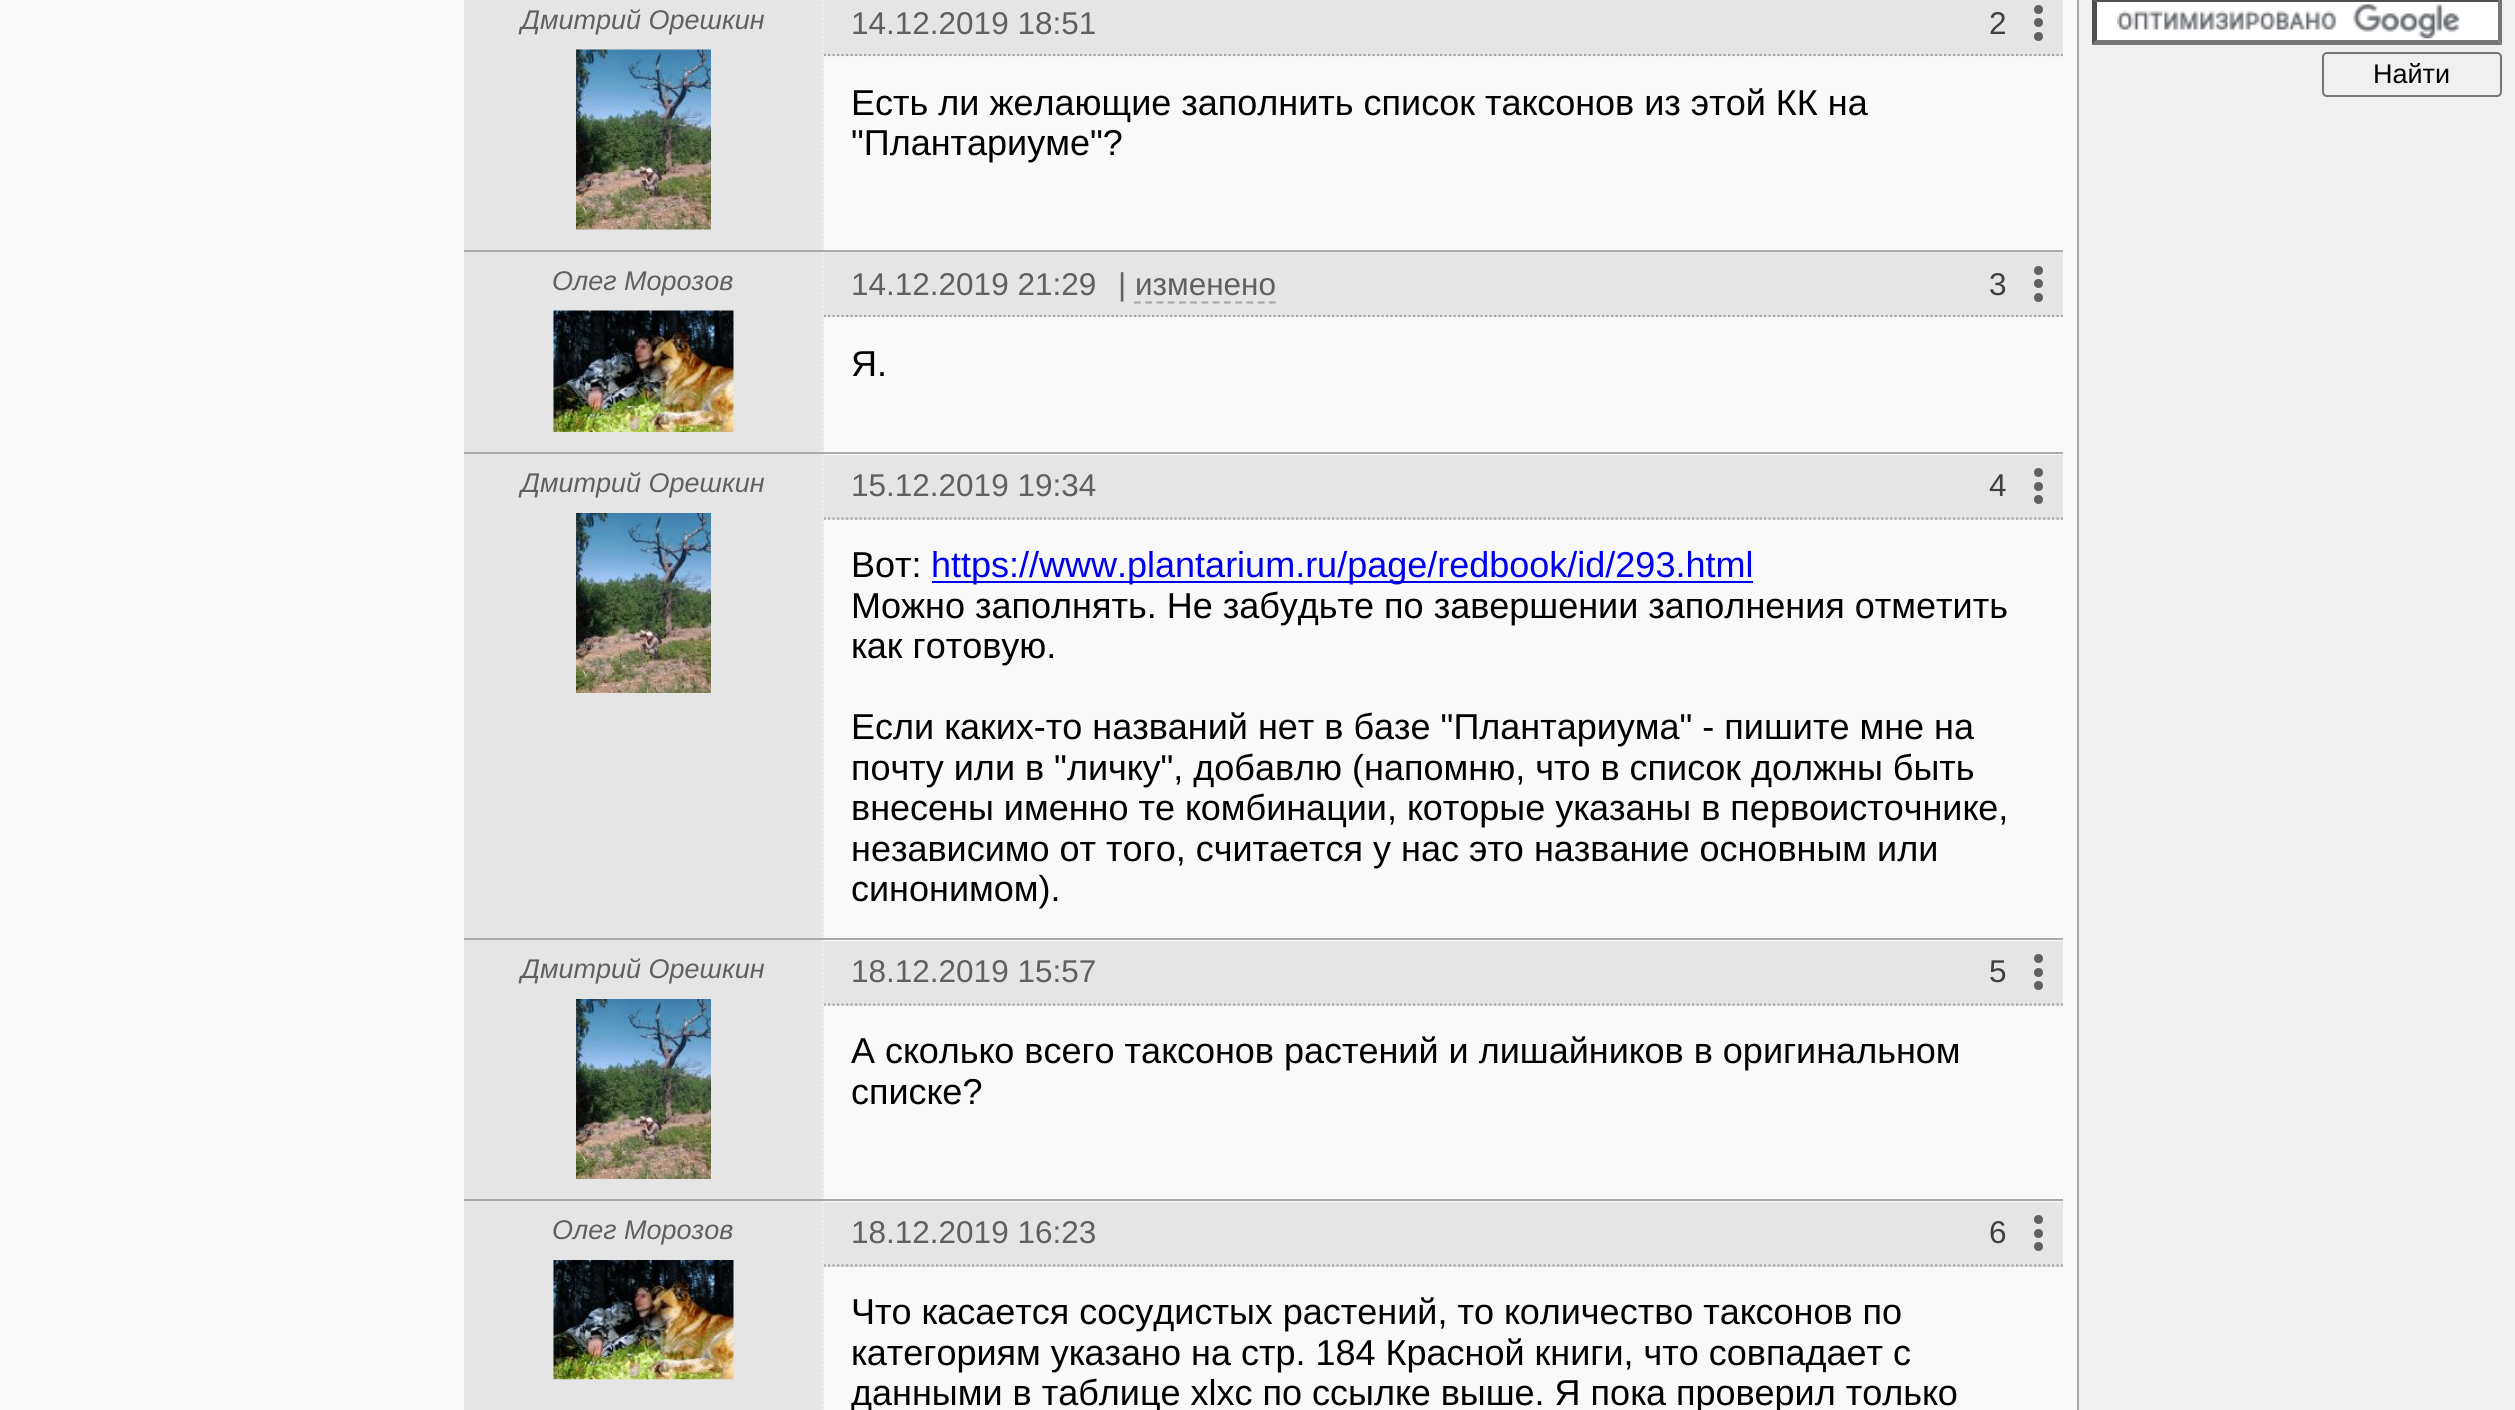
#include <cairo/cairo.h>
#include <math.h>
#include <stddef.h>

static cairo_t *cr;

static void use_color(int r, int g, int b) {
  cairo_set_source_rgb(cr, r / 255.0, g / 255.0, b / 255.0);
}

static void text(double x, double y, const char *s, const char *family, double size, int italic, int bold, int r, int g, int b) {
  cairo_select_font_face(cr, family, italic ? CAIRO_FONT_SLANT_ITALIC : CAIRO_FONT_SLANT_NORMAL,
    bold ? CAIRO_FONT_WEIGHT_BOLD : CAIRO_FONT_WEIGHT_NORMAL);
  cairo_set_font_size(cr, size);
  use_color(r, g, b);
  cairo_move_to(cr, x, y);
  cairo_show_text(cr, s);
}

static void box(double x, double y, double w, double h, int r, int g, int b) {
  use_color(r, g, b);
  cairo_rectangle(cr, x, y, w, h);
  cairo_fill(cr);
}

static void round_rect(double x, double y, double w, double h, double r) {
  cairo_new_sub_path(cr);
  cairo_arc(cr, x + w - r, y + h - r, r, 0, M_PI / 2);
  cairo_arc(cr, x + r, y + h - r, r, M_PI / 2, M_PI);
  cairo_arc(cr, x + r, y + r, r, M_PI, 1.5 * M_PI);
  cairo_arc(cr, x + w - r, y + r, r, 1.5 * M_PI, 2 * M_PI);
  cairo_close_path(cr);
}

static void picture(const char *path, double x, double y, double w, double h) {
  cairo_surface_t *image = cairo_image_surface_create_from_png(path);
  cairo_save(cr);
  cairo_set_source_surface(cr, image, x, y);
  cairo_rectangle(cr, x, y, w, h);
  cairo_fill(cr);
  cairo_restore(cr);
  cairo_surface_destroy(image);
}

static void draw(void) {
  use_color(249, 249, 249);
  cairo_paint(cr);
  box(824, 0, 1239, 56, 229, 229, 229);
  cairo_new_path(cr);
  cairo_move_to(cr, 823.5, 55);
  cairo_line_to(cr, 2063, 55);
  use_color(166, 166, 166);
  cairo_set_line_width(cr, 2.2);
  cairo_set_dash(cr, (double[]){2.25, 2.25}, 2, 0);
  cairo_stroke(cr);
  box(464, 0, 360, 250, 229, 229, 229);
  cairo_new_path(cr);
  cairo_move_to(cr, 822.5, -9);
  cairo_line_to(cr, 822.5, 252);
  use_color(239, 239, 239);
  cairo_stroke(cr);
  picture("img_01.png", 576, 49, 135, 181);
  box(464, 250, 1599, 2, 169, 169, 169);
  use_color(96, 96, 96);
  cairo_arc(cr, 2038.5, 9.5, 4.5, 0, 2 * M_PI);
  cairo_fill(cr);
  cairo_arc(cr, 2038.5, 22.5, 4.5, 0, 2 * M_PI);
  cairo_fill(cr);
  cairo_arc(cr, 2038.5, 36.5, 4.5, 0, 2 * M_PI);
  cairo_fill(cr);
  box(824, 252, 1239, 65, 229, 229, 229);
  cairo_new_path(cr);
  cairo_move_to(cr, 823.5, 316);
  cairo_line_to(cr, 2063, 316);
  use_color(166, 166, 166);
  cairo_stroke(cr);
  box(824, 455, 1239, 65, 229, 229, 229);
  cairo_new_path(cr);
  cairo_move_to(cr, 823.5, 518.5);
  cairo_line_to(cr, 2063, 518.5);
  use_color(166, 166, 166);
  cairo_stroke(cr);
  box(824, 941, 1239, 65, 229, 229, 229);
  cairo_new_path(cr);
  cairo_move_to(cr, 823.5, 1004.5);
  cairo_line_to(cr, 2063, 1004.5);
  use_color(166, 166, 166);
  cairo_stroke(cr);
  box(824, 1202, 1239, 65, 229, 229, 229);
  cairo_new_path(cr);
  cairo_move_to(cr, 823.5, 1265.5);
  cairo_line_to(cr, 2063, 1265.5);
  use_color(166, 166, 166);
  cairo_stroke(cr);
  box(464, 252, 360, 1158, 229, 229, 229);
  cairo_new_path(cr);
  cairo_move_to(cr, 822.5, 252);
  cairo_line_to(cr, 822.5, 454.5);
  use_color(239, 239, 239);
  cairo_stroke(cr);
  box(464, 452, 360, 2, 169, 169, 169);
  picture("img_02.png", 553, 310, 181, 122);
  box(824, 452, 1239, 2, 169, 169, 169);
  use_color(96, 96, 96);
  cairo_arc(cr, 2038.5, 270.5, 4.5, 0, 2 * M_PI);
  cairo_fill(cr);
  cairo_arc(cr, 2038.5, 283.5, 4.5, 0, 2 * M_PI);
  cairo_fill(cr);
  cairo_arc(cr, 2038.5, 297.5, 4.5, 0, 2 * M_PI);
  cairo_fill(cr);
  cairo_new_path(cr);
  cairo_move_to(cr, 822.5, 454.5);
  cairo_line_to(cr, 822.5, 940.5);
  use_color(239, 239, 239);
  cairo_stroke(cr);
  box(464, 938, 360, 2, 169, 169, 169);
  picture("img_03.png", 576, 513, 135, 180);
  box(824, 938, 1239, 2, 169, 169, 169);
  use_color(96, 96, 96);
  cairo_arc(cr, 2038.5, 472.5, 4.5, 0, 2 * M_PI);
  cairo_fill(cr);
  cairo_arc(cr, 2038.5, 486.5, 4.5, 0, 2 * M_PI);
  cairo_fill(cr);
  cairo_arc(cr, 2038.5, 499.5, 4.5, 0, 2 * M_PI);
  cairo_fill(cr);
  box(932, 581, 821, 2, 0, 0, 238);
  cairo_new_path(cr);
  cairo_move_to(cr, 822.5, 940.5);
  cairo_line_to(cr, 822.5, 1201.5);
  use_color(239, 239, 239);
  cairo_stroke(cr);
  box(464, 1199, 360, 2, 169, 169, 169);
  picture("img_03.png", 576, 999, 135, 180);
  box(824, 1199, 1239, 2, 169, 169, 169);
  use_color(96, 96, 96);
  cairo_arc(cr, 2038.5, 958.5, 4.5, 0, 2 * M_PI);
  cairo_fill(cr);
  cairo_arc(cr, 2038.5, 972.5, 4.5, 0, 2 * M_PI);
  cairo_fill(cr);
  cairo_arc(cr, 2038.5, 985.5, 4.5, 0, 2 * M_PI);
  cairo_fill(cr);
  cairo_new_path(cr);
  cairo_move_to(cr, 822.5, 1201.5);
  cairo_line_to(cr, 822.5, 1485);
  use_color(239, 239, 239);
  cairo_stroke(cr);
  picture("img_04.png", 553, 1260, 181, 120);
  use_color(96, 96, 96);
  cairo_arc(cr, 2038.5, 1219.5, 4.5, 0, 2 * M_PI);
  cairo_fill(cr);
  cairo_arc(cr, 2038.5, 1233.5, 4.5, 0, 2 * M_PI);
  cairo_fill(cr);
  cairo_arc(cr, 2038.5, 1246.5, 4.5, 0, 2 * M_PI);
  cairo_fill(cr);
  box(2079, 0, 436, 1410, 240, 240, 240);
  box(2077, 0, 2, 1410, 166, 166, 166);
  box(2093, 0, 409, 45, 255, 255, 255);
  picture("img_05.png", 2117, 4, 343, 35);
  use_color(79, 79, 79);
  cairo_new_path(cr);
  cairo_move_to(cr, 2092, -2);
  cairo_line_to(cr, 2502, -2);
  cairo_line_to(cr, 2498, 2);
  cairo_line_to(cr, 2097, 2);
  cairo_close_path(cr);
  cairo_fill(cr);
  use_color(118, 118, 118);
  cairo_new_path(cr);
  cairo_move_to(cr, 2502, -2);
  cairo_line_to(cr, 2502, 45);
  cairo_line_to(cr, 2498, 40);
  cairo_line_to(cr, 2498, 2);
  cairo_close_path(cr);
  cairo_fill(cr);
  cairo_new_path(cr);
  cairo_move_to(cr, 2502, 45);
  cairo_line_to(cr, 2092, 45);
  cairo_line_to(cr, 2097, 40);
  cairo_line_to(cr, 2498, 40);
  cairo_close_path(cr);
  cairo_fill(cr);
  use_color(79, 79, 79);
  cairo_new_path(cr);
  cairo_move_to(cr, 2092, 45);
  cairo_line_to(cr, 2092, -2);
  cairo_line_to(cr, 2097, 2);
  cairo_line_to(cr, 2097, 40);
  cairo_close_path(cr);
  cairo_fill(cr);
  round_rect(2323, 53, 178, 43, 4);
  use_color(118, 118, 118);
  cairo_set_line_width(cr, 2);
  cairo_set_dash(cr, NULL, 0, 0);
  cairo_stroke(cr);
  text(521, 29, "Дмитрий Орешкин", "Liberation Sans", 27, 1, 0, 96, 96, 96);
  text(851, 34, "14.12.2019 18:51", "Liberation Sans", 31.5, 0, 0, 96, 96, 96);
  text(1989, 34, "2", "Liberation Sans", 31.5, 0, 0, 64, 64, 64);
  text(851, 115, "Есть ли желающие заполнить список таксонов из этой КК на", "Liberation Sans", 36, 0, 0, 0, 0, 0);
  text(851, 155, "\"Плантариуме\"?", "Liberation Sans", 36, 0, 0, 0, 0, 0);
  text(552, 290, "Олег Морозов", "Liberation Sans", 27, 1, 0, 96, 96, 96);
  text(851, 295, "14.12.2019 21:29", "Liberation Sans", 31.5, 0, 0, 96, 96, 96);
  text(1118, 295, "| изменено", "Liberation Sans", 31.5, 0, 0, 96, 96, 96);
  cairo_new_path(cr);
  cairo_move_to(cr, 1134, 302.5);
  cairo_line_to(cr, 1276, 302.5);
  use_color(169, 169, 169);
  cairo_set_line_width(cr, 2.2);
  cairo_set_dash(cr, (double[]){6.75, 4.5}, 2, 0);
  cairo_stroke(cr);
  text(1989, 295, "3", "Liberation Sans", 31.5, 0, 0, 64, 64, 64);
  text(851, 376, "Я.", "Liberation Sans", 36, 0, 0, 0, 0, 0);
  text(521, 492, "Дмитрий Орешкин", "Liberation Sans", 27, 1, 0, 96, 96, 96);
  text(851, 496, "15.12.2019 19:34", "Liberation Sans", 31.5, 0, 0, 96, 96, 96);
  text(1989, 496, "4", "Liberation Sans", 31.5, 0, 0, 64, 64, 64);
  text(851, 577, "Вот:", "Liberation Sans", 36, 0, 0, 0, 0, 0);
  text(931, 577, "https://www.plantarium.ru/page/redbook/id/293.html", "Liberation Sans", 36, 0, 0, 0, 0, 238);
  text(851, 618, "Можно заполнять. Не забудьте по завершении заполнения отметить", "Liberation Sans", 36, 0, 0, 0, 0, 0);
  text(851, 658, "как готовую.", "Liberation Sans", 36, 0, 0, 0, 0, 0);
  text(851, 739, "Если каких-то названий нет в базе \"Плантариума\" - пишите мне на", "Liberation Sans", 36, 0, 0, 0, 0, 0);
  text(851, 780, "почту или в \"личку\", добавлю (напомню, что в список должны быть", "Liberation Sans", 36, 0, 0, 0, 0, 0);
  text(851, 820, "внесены именно те комбинации, которые указаны в первоисточнике,", "Liberation Sans", 36, 0, 0, 0, 0, 0);
  text(851, 861, "независимо от того, считается у нас это название основным или", "Liberation Sans", 36, 0, 0, 0, 0, 0);
  text(851, 901, "синонимом).", "Liberation Sans", 36, 0, 0, 0, 0, 0);
  text(521, 978, "Дмитрий Орешкин", "Liberation Sans", 27, 1, 0, 96, 96, 96);
  text(851, 982, "18.12.2019 15:57", "Liberation Sans", 31.5, 0, 0, 96, 96, 96);
  text(1989, 982, "5", "Liberation Sans", 31.5, 0, 0, 64, 64, 64);
  text(851, 1063, "А сколько всего таксонов растений и лишайников в оригинальном", "Liberation Sans", 36, 0, 0, 0, 0, 0);
  text(851, 1104, "списке?", "Liberation Sans", 36, 0, 0, 0, 0, 0);
  text(552, 1239, "Олег Морозов", "Liberation Sans", 27, 1, 0, 96, 96, 96);
  text(851, 1243, "18.12.2019 16:23", "Liberation Sans", 31.5, 0, 0, 96, 96, 96);
  text(1989, 1243, "6", "Liberation Sans", 31.5, 0, 0, 64, 64, 64);
  text(851, 1324, "Что касается сосудистых растений, то количество таксонов по", "Liberation Sans", 36, 0, 0, 0, 0, 0);
  text(851, 1365, "категориям указано на стр. 184 Красной книги, что совпадает с", "Liberation Sans", 36, 0, 0, 0, 0, 0);
  text(851, 1405, "данными в таблице xlxc по ссылке выше. Я пока проверил только", "Liberation Sans", 36, 0, 0, 0, 0, 0);
  text(2373, 83, "Найти", "Liberation Sans", 27, 0, 0, 0, 0, 0);
}

int main(void) {
  cairo_surface_t *surface = cairo_image_surface_create(CAIRO_FORMAT_RGB24, 2515, 1410);
  cr = cairo_create(surface);
  cairo_font_options_t *options = cairo_font_options_create();
  cairo_font_options_set_hint_metrics(options, CAIRO_HINT_METRICS_OFF);
  cairo_font_options_set_hint_style(options, CAIRO_HINT_STYLE_NONE);
  cairo_set_font_options(cr, options);
  cairo_set_miter_limit(cr, 4);
  draw();
  cairo_surface_write_to_png(surface, "out.png");
  cairo_font_options_destroy(options);
  cairo_destroy(cr);
  cairo_surface_destroy(surface);
  return 0;
}
